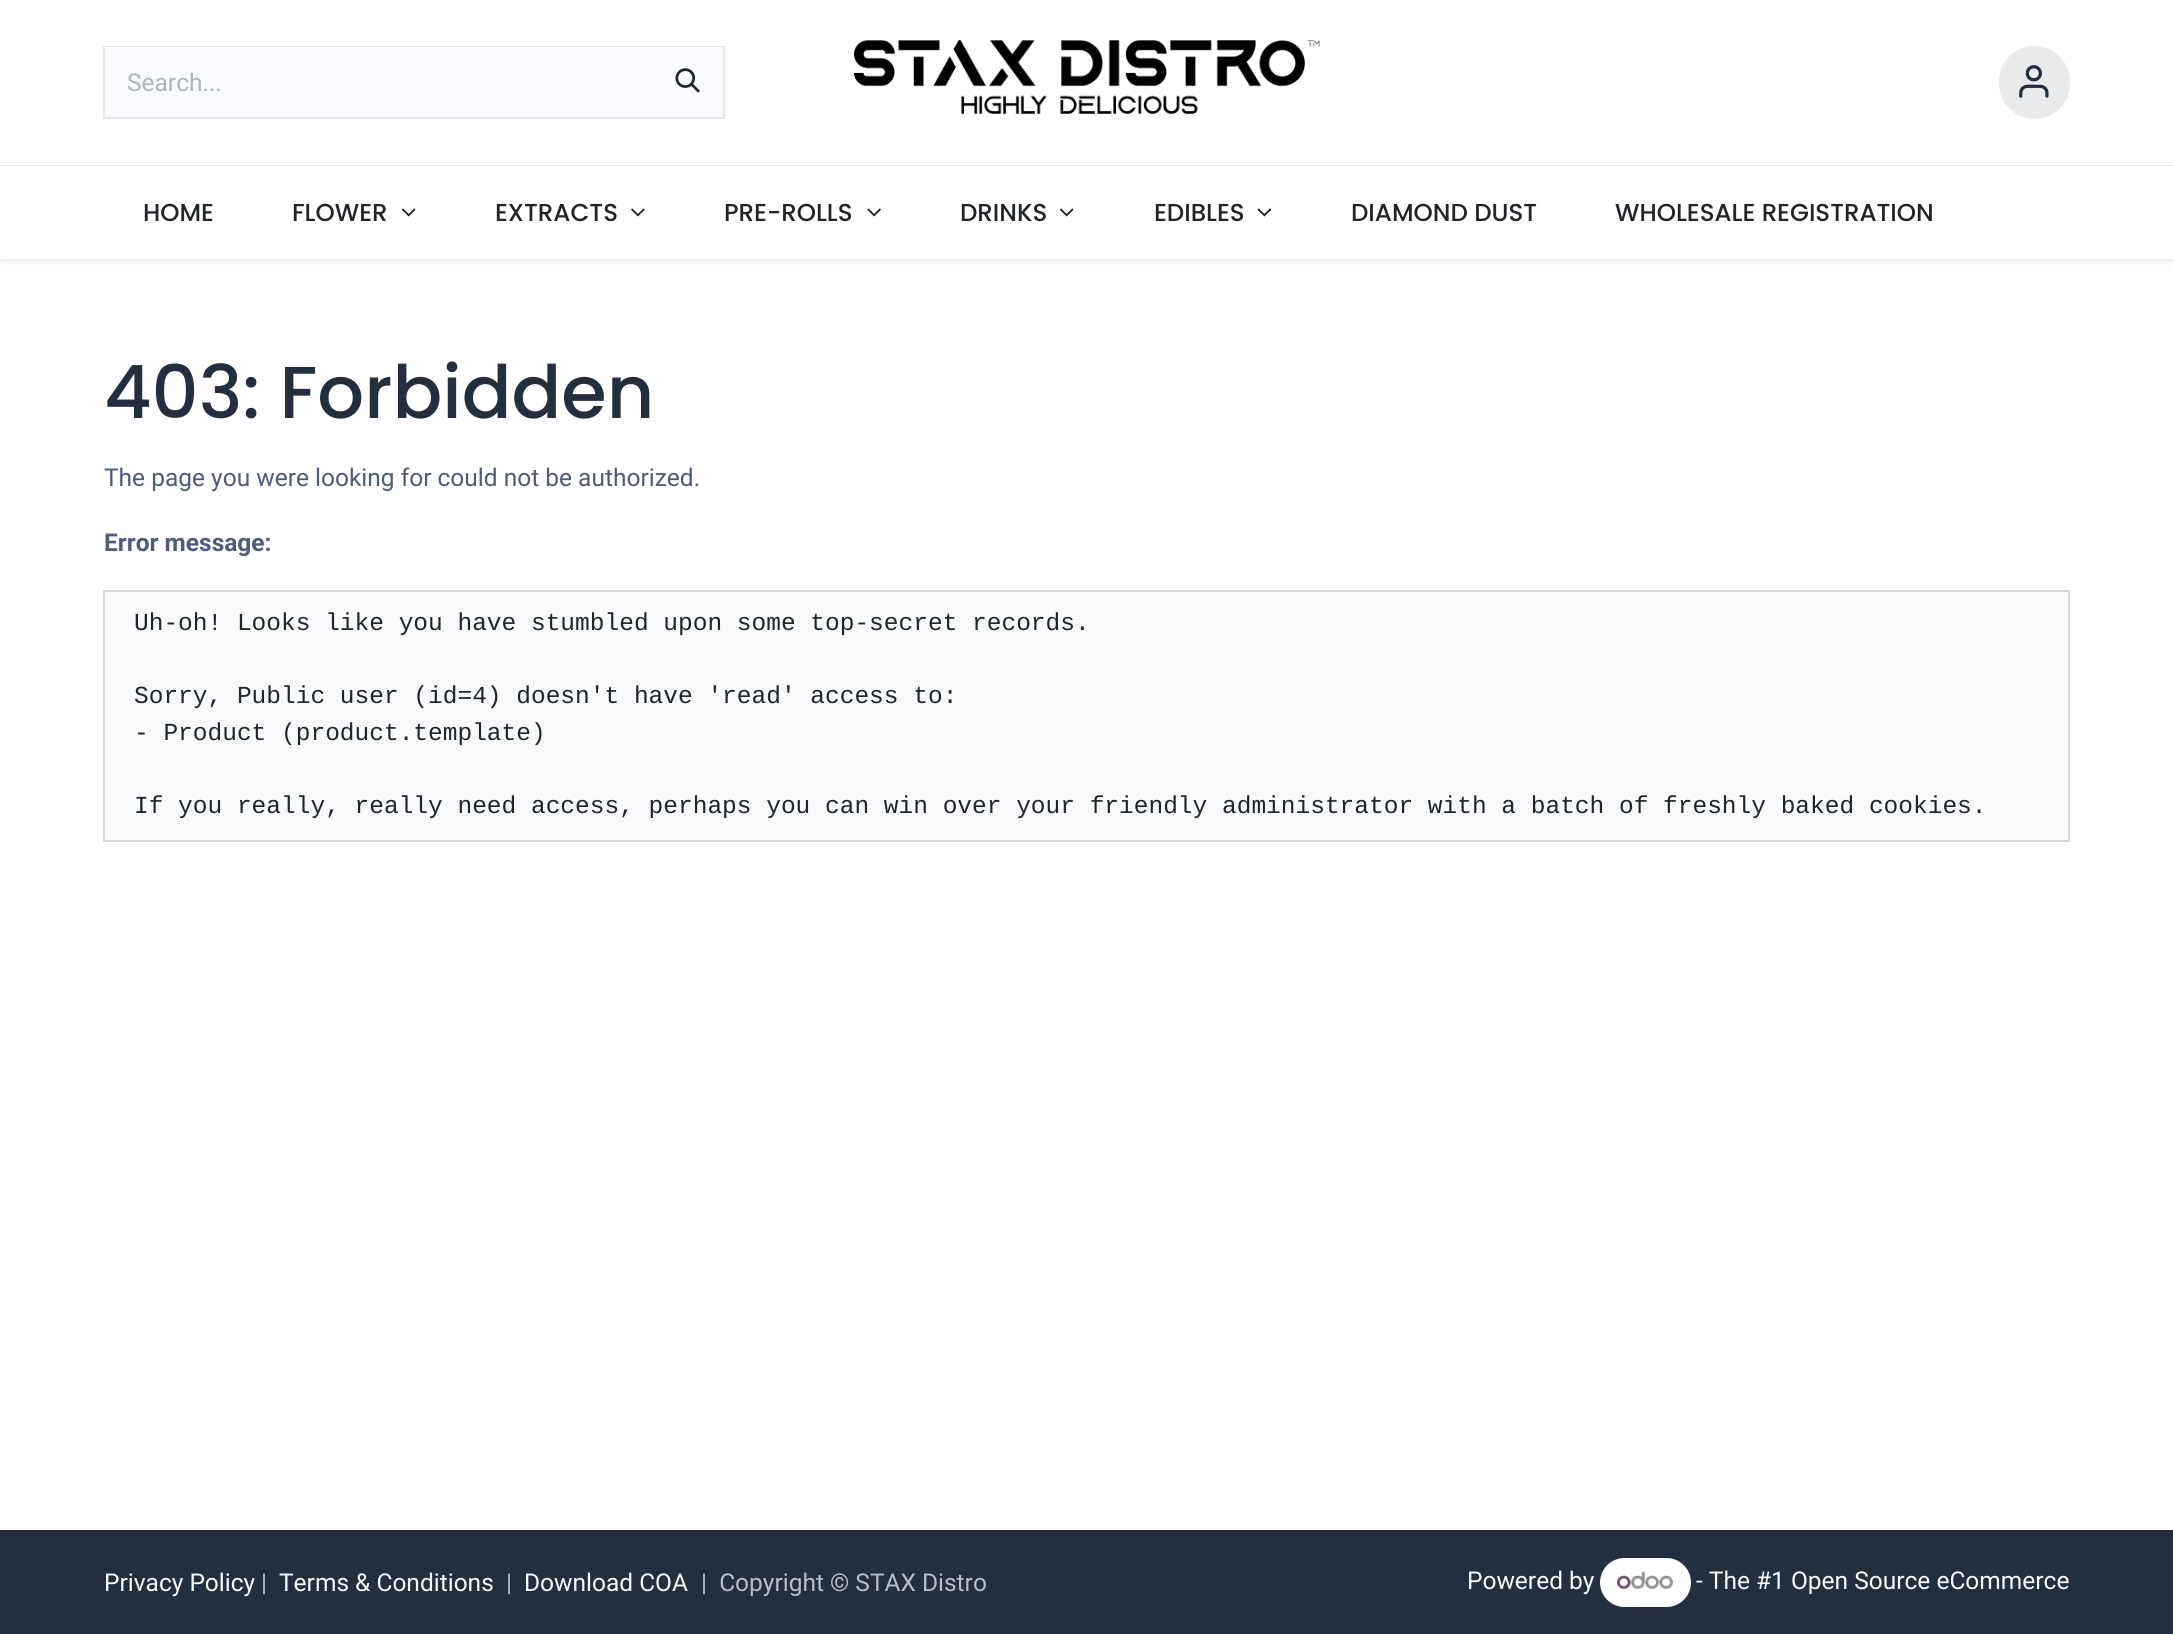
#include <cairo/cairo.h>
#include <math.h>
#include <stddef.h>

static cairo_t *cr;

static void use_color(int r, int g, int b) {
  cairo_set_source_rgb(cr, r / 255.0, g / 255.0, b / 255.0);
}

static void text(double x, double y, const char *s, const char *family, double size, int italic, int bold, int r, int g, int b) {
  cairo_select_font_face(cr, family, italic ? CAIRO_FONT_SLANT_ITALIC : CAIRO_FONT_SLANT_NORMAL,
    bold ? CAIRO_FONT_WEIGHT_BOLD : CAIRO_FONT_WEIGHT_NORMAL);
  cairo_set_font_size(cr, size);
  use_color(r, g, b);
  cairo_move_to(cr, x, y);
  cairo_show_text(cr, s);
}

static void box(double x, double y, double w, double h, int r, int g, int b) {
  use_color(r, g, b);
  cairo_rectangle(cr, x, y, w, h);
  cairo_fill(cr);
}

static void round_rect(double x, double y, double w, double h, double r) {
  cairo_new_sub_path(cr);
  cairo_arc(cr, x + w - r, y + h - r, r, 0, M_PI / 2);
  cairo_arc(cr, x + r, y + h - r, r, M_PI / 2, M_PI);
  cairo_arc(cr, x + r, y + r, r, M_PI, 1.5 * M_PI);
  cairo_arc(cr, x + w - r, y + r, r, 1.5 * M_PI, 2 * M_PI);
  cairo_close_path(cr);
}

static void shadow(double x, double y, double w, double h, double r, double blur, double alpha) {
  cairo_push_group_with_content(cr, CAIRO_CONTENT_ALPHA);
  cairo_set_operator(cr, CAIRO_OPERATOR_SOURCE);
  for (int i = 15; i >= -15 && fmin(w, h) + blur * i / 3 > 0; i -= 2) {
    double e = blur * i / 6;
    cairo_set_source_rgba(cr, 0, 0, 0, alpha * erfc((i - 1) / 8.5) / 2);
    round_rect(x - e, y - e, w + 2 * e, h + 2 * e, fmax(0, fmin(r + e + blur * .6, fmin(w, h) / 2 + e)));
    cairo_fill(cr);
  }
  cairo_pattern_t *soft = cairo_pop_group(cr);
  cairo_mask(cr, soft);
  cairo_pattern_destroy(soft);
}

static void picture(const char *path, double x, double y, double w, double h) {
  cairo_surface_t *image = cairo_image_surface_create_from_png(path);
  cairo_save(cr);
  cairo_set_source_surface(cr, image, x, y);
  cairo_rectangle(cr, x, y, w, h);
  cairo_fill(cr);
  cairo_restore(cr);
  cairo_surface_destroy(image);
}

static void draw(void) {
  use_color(255, 255, 255);
  cairo_paint(cr);
  box(0, 165, 2173, 1, 234, 235, 239);
  cairo_rectangle(cr, 104, 47, 620, 71);
  use_color(228, 230, 235);
  cairo_stroke(cr);
  box(105, 47, 618, 70, 249, 250, 254);
  picture("img_01.png", 675, 68, 25, 25);
  picture("img_02.png", 854, 40, 466, 74);
  use_color(233, 234, 236);
  round_rect(1999, 46, 71, 73, 35.5);
  cairo_fill(cr);
  picture("img_03.png", 2019, 65, 30, 33);
  use_color(0, 0, 0);
  shadow(0, 170, 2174, 93, 0, 3.5, 0.07);
  box(0, 166, 2173, 93, 255, 255, 255);
  picture("img_04.png", 401, 208, 15, 9);
  picture("img_05.png", 631, 208, 14, 9);
  picture("img_06.png", 867, 208, 14, 9);
  picture("img_04.png", 1059, 208, 15, 9);
  picture("img_07.png", 1257, 208, 15, 9);
  use_color(248, 249, 250);
  cairo_rectangle(cr, 104, 591, 1965, 250);
  cairo_fill_preserve(cr);
  use_color(216, 217, 219);
  cairo_stroke(cr);
  box(0, 1530, 2173, 104, 35, 47, 62);
  use_color(254, 255, 255);
  round_rect(1601, 1559, 89, 47, 23.5);
  cairo_fill_preserve(cr);
  use_color(249, 250, 254);
  cairo_stroke(cr);
  picture("img_08.png", 1617, 1571, 56, 18);
  text(127, 91, "Search...", "Roboto", 24.5, 0, 0, 173, 181, 189);
  text(143, 221, "HOME", "Poppins Medium", 24.5, 0, 0, 33, 37, 41);
  text(292, 221, "FLOWER", "Poppins Medium", 24.5, 0, 0, 33, 37, 41);
  text(495, 221, "EXTRACTS", "Poppins Medium", 24.5, 0, 0, 33, 37, 41);
  text(724, 221, "PRE-ROLLS", "Poppins Medium", 24.5, 0, 0, 33, 37, 41);
  text(960, 221, "DRINKS", "Poppins Medium", 24.5, 0, 0, 33, 37, 41);
  text(1154, 221, "EDIBLES", "Poppins Medium", 24.5, 0, 0, 33, 37, 41);
  text(1351, 221, "DIAMOND DUST", "Poppins Medium", 24.5, 0, 0, 33, 37, 41);
  text(1615, 221, "WHOLESALE REGISTRATION", "Poppins Medium", 24.5, 0, 0, 33, 37, 41);
  text(104, 418, "403: Forbidden", "Poppins Medium", 73.5, 0, 0, 35, 47, 62);
  text(104, 486, "The page you were looking for could not be authorized.", "Roboto", 24.5, 0, 0, 77, 91, 124);
  text(104, 551, "Error message:", "Roboto", 24.5, 0, 1, 77, 91, 124);
  text(134, 630, "Uh-oh! Looks like you have stumbled upon some top-secret records.", "Liberation Mono", 24.5, 0, 0, 33, 37, 41);
  text(134, 703, "Sorry, Public user (id=4) doesn't have 'read' access to:", "Liberation Mono", 24.5, 0, 0, 33, 37, 41);
  text(134, 740, "- Product (product.template)", "Liberation Mono", 24.5, 0, 0, 33, 37, 41);
  text(134, 813, "If you really, really need access, perhaps you can win over your friendly administrator with a batch of freshly baked cookies.", "Liberation Mono", 24.5, 0, 0, 33, 37, 41);
  text(104, 1591, "Privacy Policy", "Roboto", 24.5, 0, 0, 249, 250, 254);
  text(261, 1591, "|", "Roboto", 24.5, 0, 0, 185, 189, 196);
  text(279, 1591, "Terms & Conditions", "Roboto", 24.5, 0, 0, 249, 250, 254);
  text(506, 1591, "|", "Roboto", 24.5, 0, 0, 185, 189, 196);
  text(524, 1591, "Download COA", "Roboto", 24.5, 0, 0, 249, 250, 254);
  text(701, 1591, "|  Copyright © STAX Distro", "Roboto", 24.5, 0, 0, 185, 189, 196);
  text(1467, 1589, "Powered by", "Roboto", 24.5, 0, 0, 249, 250, 254);
  text(1696, 1589, "- The #1 Open Source eCommerce", "Roboto", 24.5, 0, 0, 249, 250, 254);
}

int main(void) {
  cairo_surface_t *surface = cairo_image_surface_create(CAIRO_FORMAT_RGB24, 2173, 1634);
  cr = cairo_create(surface);
  cairo_font_options_t *options = cairo_font_options_create();
  cairo_font_options_set_hint_metrics(options, CAIRO_HINT_METRICS_OFF);
  cairo_font_options_set_hint_style(options, CAIRO_HINT_STYLE_NONE);
  cairo_set_font_options(cr, options);
  cairo_set_miter_limit(cr, 4);
  draw();
  cairo_surface_write_to_png(surface, "out.png");
  cairo_font_options_destroy(options);
  cairo_destroy(cr);
  cairo_surface_destroy(surface);
  return 0;
}
